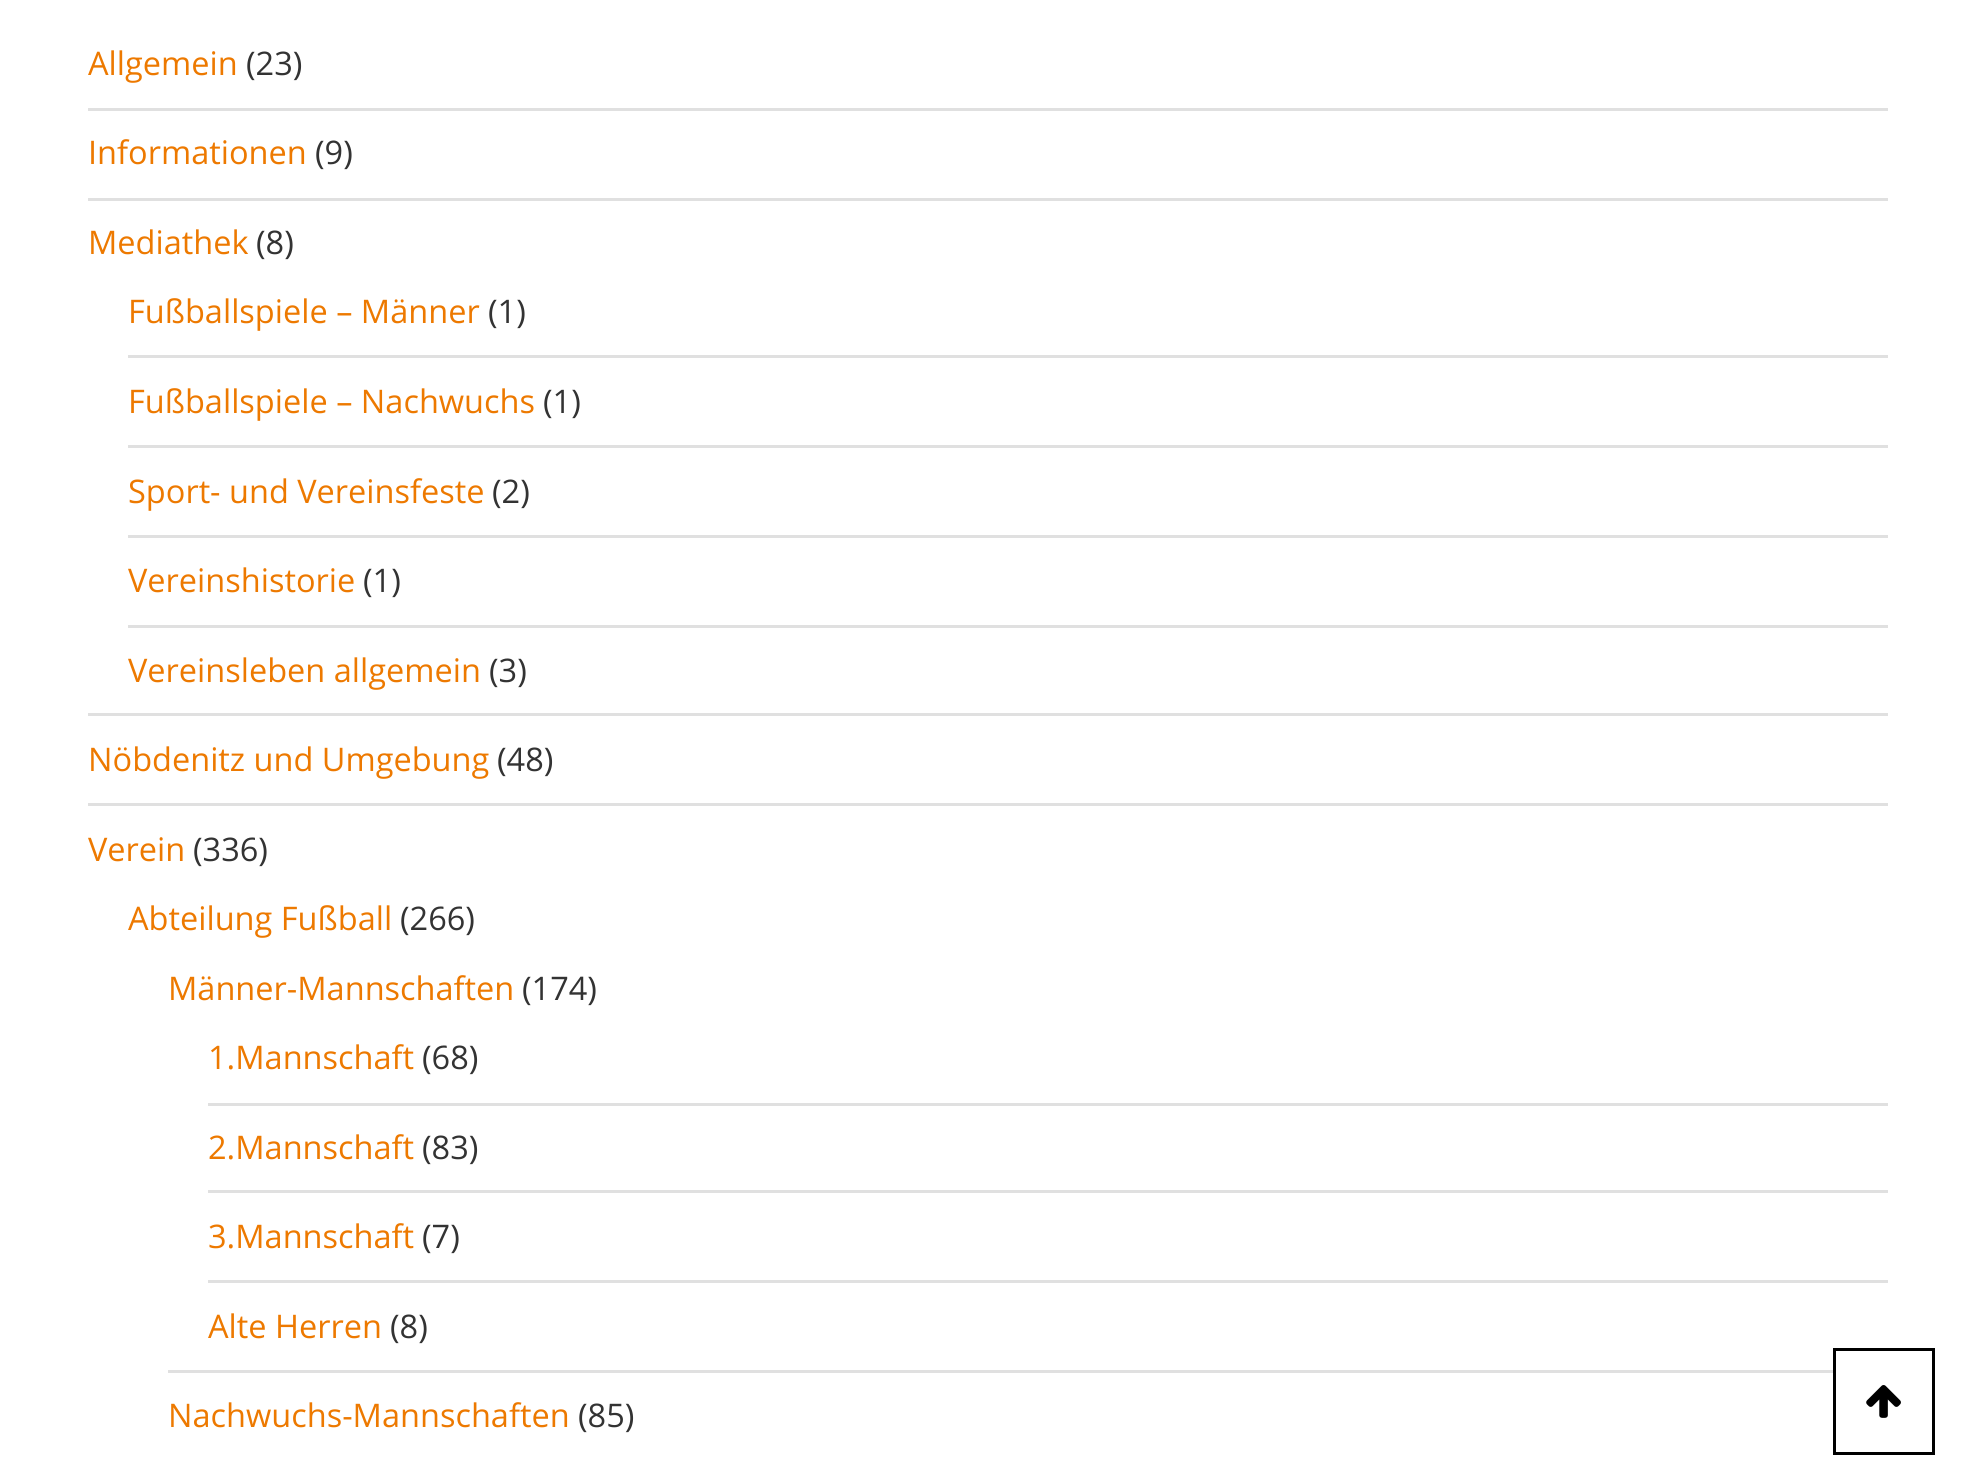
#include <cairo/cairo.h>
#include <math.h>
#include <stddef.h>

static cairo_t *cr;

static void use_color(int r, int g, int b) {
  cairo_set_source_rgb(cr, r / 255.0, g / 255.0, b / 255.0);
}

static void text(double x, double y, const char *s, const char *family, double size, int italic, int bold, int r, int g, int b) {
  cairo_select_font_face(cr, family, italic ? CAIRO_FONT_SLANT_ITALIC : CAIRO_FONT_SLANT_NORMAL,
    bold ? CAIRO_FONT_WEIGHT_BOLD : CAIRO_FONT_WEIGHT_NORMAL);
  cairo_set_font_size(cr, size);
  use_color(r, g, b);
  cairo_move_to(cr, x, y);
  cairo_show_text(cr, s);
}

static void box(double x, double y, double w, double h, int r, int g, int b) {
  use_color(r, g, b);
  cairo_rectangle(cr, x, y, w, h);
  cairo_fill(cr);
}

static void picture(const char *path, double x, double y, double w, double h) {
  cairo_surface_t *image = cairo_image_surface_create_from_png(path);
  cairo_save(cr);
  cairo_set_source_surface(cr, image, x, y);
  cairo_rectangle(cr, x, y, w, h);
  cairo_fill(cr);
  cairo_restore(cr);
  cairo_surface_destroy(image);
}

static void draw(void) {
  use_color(255, 255, 255);
  cairo_paint(cr);
  box(88, 108, 1800, 3, 224, 224, 224);
  box(88, 198, 1800, 3, 224, 224, 224);
  box(88, 713, 1800, 3, 224, 224, 224);
  box(128, 355, 1760, 3, 224, 224, 224);
  box(128, 445, 1760, 3, 224, 224, 224);
  box(128, 535, 1760, 3, 224, 224, 224);
  box(128, 625, 1760, 3, 224, 224, 224);
  box(88, 803, 1800, 3, 224, 224, 224);
  box(168, 1370, 1665, 3, 224, 224, 224);
  box(208, 1103, 1680, 3, 224, 224, 224);
  box(208, 1190, 1680, 3, 224, 224, 224);
  box(208, 1280, 1680, 3, 224, 224, 224);
  cairo_rectangle(cr, 1834.5, 1349.5, 99, 104);
  use_color(0, 0, 0);
  cairo_set_line_width(cr, 3);
  cairo_stroke(cr);
  picture("img_01.png", 1866, 1385, 35, 33);
  text(88, 75, "Allgemein", "Open Sans", 32.5, 0, 0, 237, 121, 0);
  text(246, 75, "(23)", "Open Sans", 32.5, 0, 0, 51, 51, 51);
  text(88, 164, "Informationen", "Open Sans", 32.5, 0, 0, 237, 121, 0);
  text(315, 164, "(9)", "Open Sans", 32.5, 0, 0, 51, 51, 51);
  text(88, 254, "Mediathek", "Open Sans", 32.5, 0, 0, 237, 121, 0);
  text(256, 254, "(8)", "Open Sans", 32.5, 0, 0, 51, 51, 51);
  text(128, 323, "Fußballspiele – Männer", "Open Sans", 32.5, 0, 0, 237, 121, 0);
  text(488, 323, "(1)", "Open Sans", 32.5, 0, 0, 51, 51, 51);
  text(128, 413, "Fußballspiele – Nachwuchs", "Open Sans", 32.5, 0, 0, 237, 121, 0);
  text(543, 413, "(1)", "Open Sans", 32.5, 0, 0, 51, 51, 51);
  text(128, 503, "Sport- und Vereinsfeste", "Open Sans", 32.5, 0, 0, 237, 121, 0);
  text(492, 503, "(2)", "Open Sans", 32.5, 0, 0, 51, 51, 51);
  text(128, 592, "Vereinshistorie", "Open Sans", 32.5, 0, 0, 237, 121, 0);
  text(363, 592, "(1)", "Open Sans", 32.5, 0, 0, 51, 51, 51);
  text(128, 682, "Vereinsleben allgemein", "Open Sans", 32.5, 0, 0, 237, 121, 0);
  text(489, 682, "(3)", "Open Sans", 32.5, 0, 0, 51, 51, 51);
  text(88, 771, "Nöbdenitz und Umgebung", "Open Sans", 32.5, 0, 0, 237, 121, 0);
  text(497, 771, "(48)", "Open Sans", 32.5, 0, 0, 51, 51, 51);
  text(88, 861, "Verein", "Open Sans", 32.5, 0, 0, 237, 121, 0);
  text(193, 861, "(336)", "Open Sans", 32.5, 0, 0, 51, 51, 51);
  text(128, 930, "Abteilung Fußball", "Open Sans", 32.5, 0, 0, 237, 121, 0);
  text(400, 930, "(266)", "Open Sans", 32.5, 0, 0, 51, 51, 51);
  text(168, 1000, "Männer-Mannschaften", "Open Sans", 32.5, 0, 0, 237, 121, 0);
  text(522, 1000, "(174)", "Open Sans", 32.5, 0, 0, 51, 51, 51);
  text(208, 1069, "1.Mannschaft", "Open Sans", 32.5, 0, 0, 237, 121, 0);
  text(422, 1069, "(68)", "Open Sans", 32.5, 0, 0, 51, 51, 51);
  text(208, 1159, "2.Mannschaft", "Open Sans", 32.5, 0, 0, 237, 121, 0);
  text(422, 1159, "(83)", "Open Sans", 32.5, 0, 0, 51, 51, 51);
  text(208, 1248, "3.Mannschaft", "Open Sans", 32.5, 0, 0, 237, 121, 0);
  text(422, 1248, "(7)", "Open Sans", 32.5, 0, 0, 51, 51, 51);
  text(208, 1338, "Alte Herren", "Open Sans", 32.5, 0, 0, 237, 121, 0);
  text(390, 1338, "(8)", "Open Sans", 32.5, 0, 0, 51, 51, 51);
  text(168, 1427, "Nachwuchs-Mannschaften", "Open Sans", 32.5, 0, 0, 237, 121, 0);
  text(578, 1427, "(85)", "Open Sans", 32.5, 0, 0, 51, 51, 51);
}

int main(void) {
  cairo_surface_t *surface = cairo_image_surface_create(CAIRO_FORMAT_RGB24, 1975, 1479);
  cr = cairo_create(surface);
  cairo_font_options_t *options = cairo_font_options_create();
  cairo_font_options_set_hint_metrics(options, CAIRO_HINT_METRICS_OFF);
  cairo_font_options_set_hint_style(options, CAIRO_HINT_STYLE_NONE);
  cairo_set_font_options(cr, options);
  cairo_set_miter_limit(cr, 4);
  draw();
  cairo_surface_write_to_png(surface, "out.png");
  cairo_font_options_destroy(options);
  cairo_destroy(cr);
  cairo_surface_destroy(surface);
  return 0;
}
